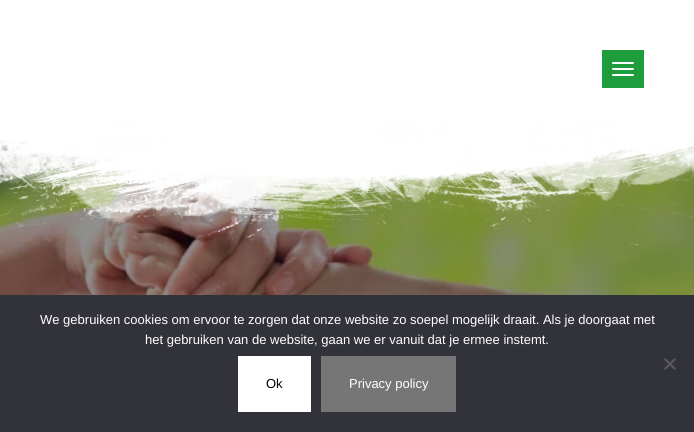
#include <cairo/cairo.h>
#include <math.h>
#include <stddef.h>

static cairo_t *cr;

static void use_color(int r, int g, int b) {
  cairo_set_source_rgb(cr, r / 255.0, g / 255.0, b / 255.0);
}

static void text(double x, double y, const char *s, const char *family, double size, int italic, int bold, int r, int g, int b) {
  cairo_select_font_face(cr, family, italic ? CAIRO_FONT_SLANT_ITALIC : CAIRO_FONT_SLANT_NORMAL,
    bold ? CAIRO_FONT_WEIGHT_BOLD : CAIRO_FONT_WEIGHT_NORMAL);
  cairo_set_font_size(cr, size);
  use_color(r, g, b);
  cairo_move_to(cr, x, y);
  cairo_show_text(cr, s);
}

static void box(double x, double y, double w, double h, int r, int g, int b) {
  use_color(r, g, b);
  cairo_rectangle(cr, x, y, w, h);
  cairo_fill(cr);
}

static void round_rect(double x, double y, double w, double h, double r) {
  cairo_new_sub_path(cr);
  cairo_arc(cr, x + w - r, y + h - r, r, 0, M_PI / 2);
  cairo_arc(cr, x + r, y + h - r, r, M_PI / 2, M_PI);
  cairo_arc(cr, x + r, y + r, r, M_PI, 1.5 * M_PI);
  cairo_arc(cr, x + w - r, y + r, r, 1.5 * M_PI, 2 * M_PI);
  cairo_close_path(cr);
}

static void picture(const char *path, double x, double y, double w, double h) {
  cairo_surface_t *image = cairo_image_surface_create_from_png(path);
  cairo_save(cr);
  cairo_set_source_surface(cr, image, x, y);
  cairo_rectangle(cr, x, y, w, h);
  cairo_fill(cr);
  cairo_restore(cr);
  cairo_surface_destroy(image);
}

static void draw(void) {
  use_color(255, 255, 255);
  cairo_paint(cr);
  box(602, 50, 42, 38, 29, 157, 59);
  use_color(255, 255, 255);
  round_rect(612, 62, 22, 2, 1);
  cairo_fill(cr);
  round_rect(612, 68, 22, 2, 1);
  cairo_fill(cr);
  round_rect(612, 74, 22, 2, 1);
  cairo_fill(cr);
  picture("img_02.png", 0, 121, 694, 174);
  picture("img_01.png", 0, 120, 694, 126);
  box(0, 295, 694, 137, 50, 50, 58);
  use_color(89, 89, 93);
  cairo_new_path(cr);
  cairo_move_to(cr, 674.5, 358);
  cairo_line_to(cr, 676, 359.5);
  cairo_line_to(cr, 665.5, 370);
  cairo_line_to(cr, 664, 368.5);
  cairo_close_path(cr);
  cairo_fill(cr);
  cairo_new_path(cr);
  cairo_move_to(cr, 664, 359.5);
  cairo_line_to(cr, 665.5, 358);
  cairo_line_to(cr, 676, 368.5);
  cairo_line_to(cr, 674.5, 370);
  cairo_close_path(cr);
  cairo_fill(cr);
  box(238, 356, 73, 56, 255, 255, 255);
  box(321, 356, 135, 56, 118, 118, 118);
  text(40, 324, "We gebruiken cookies om ervoor te zorgen dat onze website zo soepel mogelijk draait. Als je doorgaat met", "Liberation Sans", 13, 0, 0, 255, 255, 255);
  text(145, 344, "het gebruiken van de website, gaan we er vanuit dat je ermee instemt.", "Liberation Sans", 13, 0, 0, 255, 255, 255);
  text(266, 388, "Ok", "Liberation Sans", 13, 0, 0, 0, 0, 0);
  text(349, 388, "Privacy policy", "Liberation Sans", 13, 0, 0, 255, 255, 255);
}

int main(void) {
  cairo_surface_t *surface = cairo_image_surface_create(CAIRO_FORMAT_RGB24, 694, 432);
  cr = cairo_create(surface);
  cairo_font_options_t *options = cairo_font_options_create();
  cairo_font_options_set_hint_metrics(options, CAIRO_HINT_METRICS_OFF);
  cairo_font_options_set_hint_style(options, CAIRO_HINT_STYLE_NONE);
  cairo_set_font_options(cr, options);
  cairo_set_miter_limit(cr, 4);
  draw();
  cairo_surface_write_to_png(surface, "out.png");
  cairo_font_options_destroy(options);
  cairo_destroy(cr);
  cairo_surface_destroy(surface);
  return 0;
}
